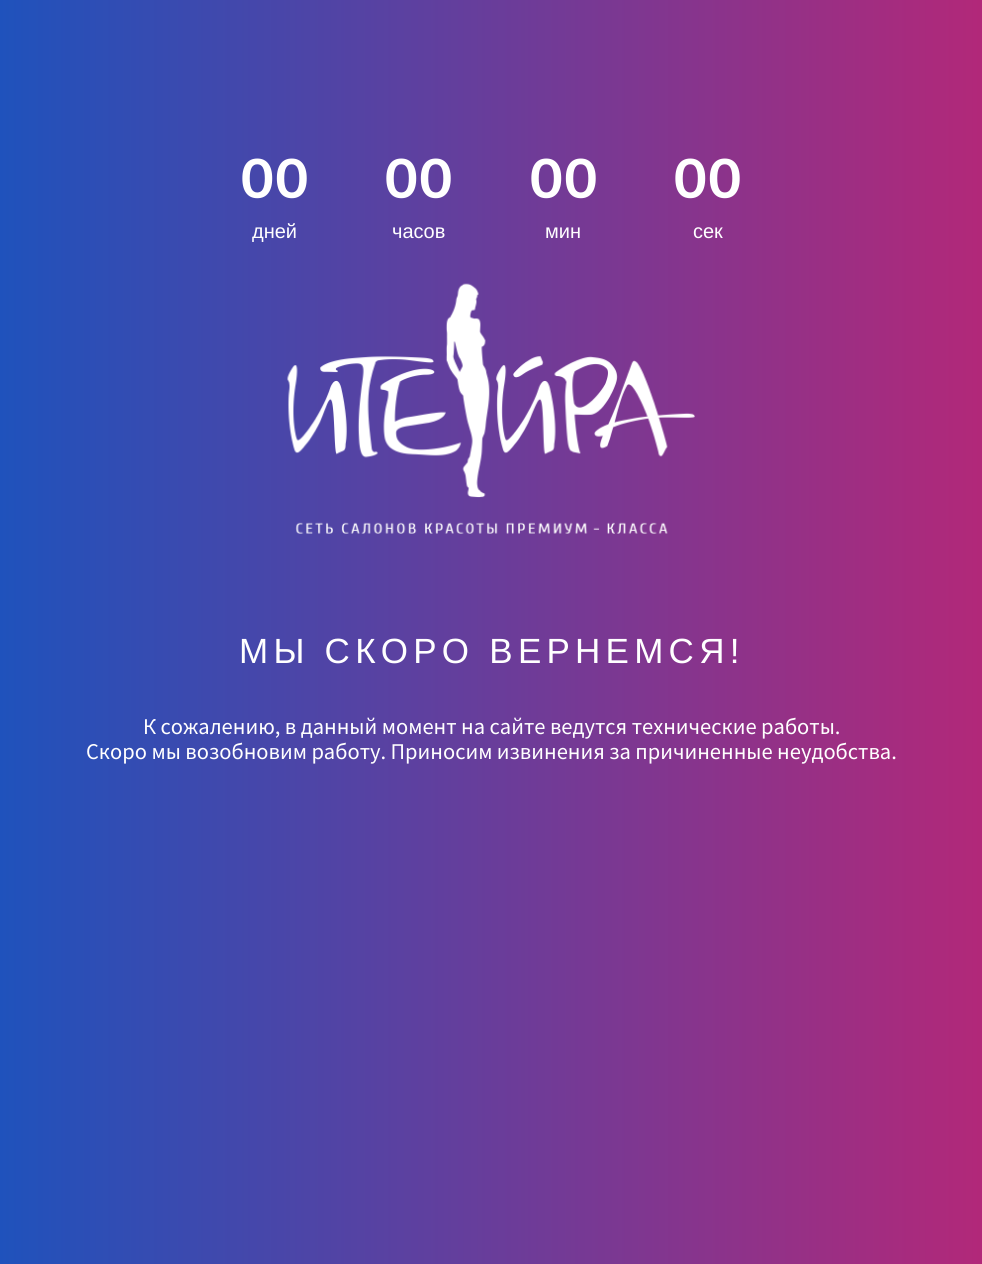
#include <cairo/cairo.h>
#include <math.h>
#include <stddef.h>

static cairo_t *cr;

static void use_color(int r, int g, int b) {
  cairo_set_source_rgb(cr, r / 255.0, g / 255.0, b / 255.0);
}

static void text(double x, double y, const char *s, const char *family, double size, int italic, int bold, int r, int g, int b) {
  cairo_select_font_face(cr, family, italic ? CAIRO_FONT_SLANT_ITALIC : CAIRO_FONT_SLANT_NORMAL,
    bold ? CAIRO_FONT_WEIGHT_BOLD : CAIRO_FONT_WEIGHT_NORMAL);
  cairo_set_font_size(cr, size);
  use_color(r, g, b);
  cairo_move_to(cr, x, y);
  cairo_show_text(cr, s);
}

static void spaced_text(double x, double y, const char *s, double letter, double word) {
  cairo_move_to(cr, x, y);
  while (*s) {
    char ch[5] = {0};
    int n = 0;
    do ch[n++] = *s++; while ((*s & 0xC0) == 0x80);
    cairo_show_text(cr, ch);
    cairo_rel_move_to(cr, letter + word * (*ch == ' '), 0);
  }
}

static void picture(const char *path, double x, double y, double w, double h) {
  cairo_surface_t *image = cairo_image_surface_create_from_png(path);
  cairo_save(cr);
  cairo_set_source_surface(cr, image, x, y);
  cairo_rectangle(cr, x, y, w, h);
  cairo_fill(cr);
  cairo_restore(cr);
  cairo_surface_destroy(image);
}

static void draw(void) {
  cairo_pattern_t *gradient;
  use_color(255, 255, 255);
  cairo_paint(cr);
  gradient = cairo_pattern_create_linear(0, 633, 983, 633);
  cairo_pattern_add_color_stop_rgba(gradient, 0, 0.122, 0.322, 0.737, 1);
  cairo_pattern_add_color_stop_rgba(gradient, 1, 0.698, 0.157, 0.475, 1);
  cairo_set_source(cr, gradient);
  cairo_pattern_destroy(gradient);
  cairo_rectangle(cr, 0, 0, 982, 1264);
  cairo_fill(cr);
  picture("img_01.png", 287, 283, 408, 251);
  text(240, 198, "00", "Montserrat Medium", 56, 0, 0, 255, 255, 255);
  text(252, 238, "дней", "Liberation Sans", 20, 0, 0, 255, 255, 255);
  text(384, 198, "00", "Montserrat Medium", 56, 0, 0, 255, 255, 255);
  text(392, 238, "часов", "Liberation Sans", 20, 0, 0, 255, 255, 255);
  text(529, 198, "00", "Montserrat Medium", 56, 0, 0, 255, 255, 255);
  text(545, 238, "мин", "Liberation Sans", 20, 0, 0, 255, 255, 255);
  text(673, 198, "00", "Montserrat Medium", 56, 0, 0, 255, 255, 255);
  text(693, 238, "сек", "Liberation Sans", 20, 0, 0, 255, 255, 255);
  cairo_set_font_size(cr, 35);
  spaced_text(239, 663, "МЫ СКОРО ВЕРНЕМСЯ!", 5.25, 0);
  text(143, 734, "К сожалению, в данный момент на сайте ведутся технические работы.", "Source Sans Pro", 22.5, 0, 0, 255, 255, 255);
  text(86, 759, "Скоро мы возобновим работу. Приносим извинения за причиненные неудобства.", "Source Sans Pro", 22.5, 0, 0, 255, 255, 255);
}

int main(void) {
  cairo_surface_t *surface = cairo_image_surface_create(CAIRO_FORMAT_RGB24, 982, 1264);
  cr = cairo_create(surface);
  cairo_font_options_t *options = cairo_font_options_create();
  cairo_font_options_set_hint_metrics(options, CAIRO_HINT_METRICS_OFF);
  cairo_font_options_set_hint_style(options, CAIRO_HINT_STYLE_NONE);
  cairo_set_font_options(cr, options);
  cairo_set_miter_limit(cr, 4);
  draw();
  cairo_surface_write_to_png(surface, "out.png");
  cairo_font_options_destroy(options);
  cairo_destroy(cr);
  cairo_surface_destroy(surface);
  return 0;
}
